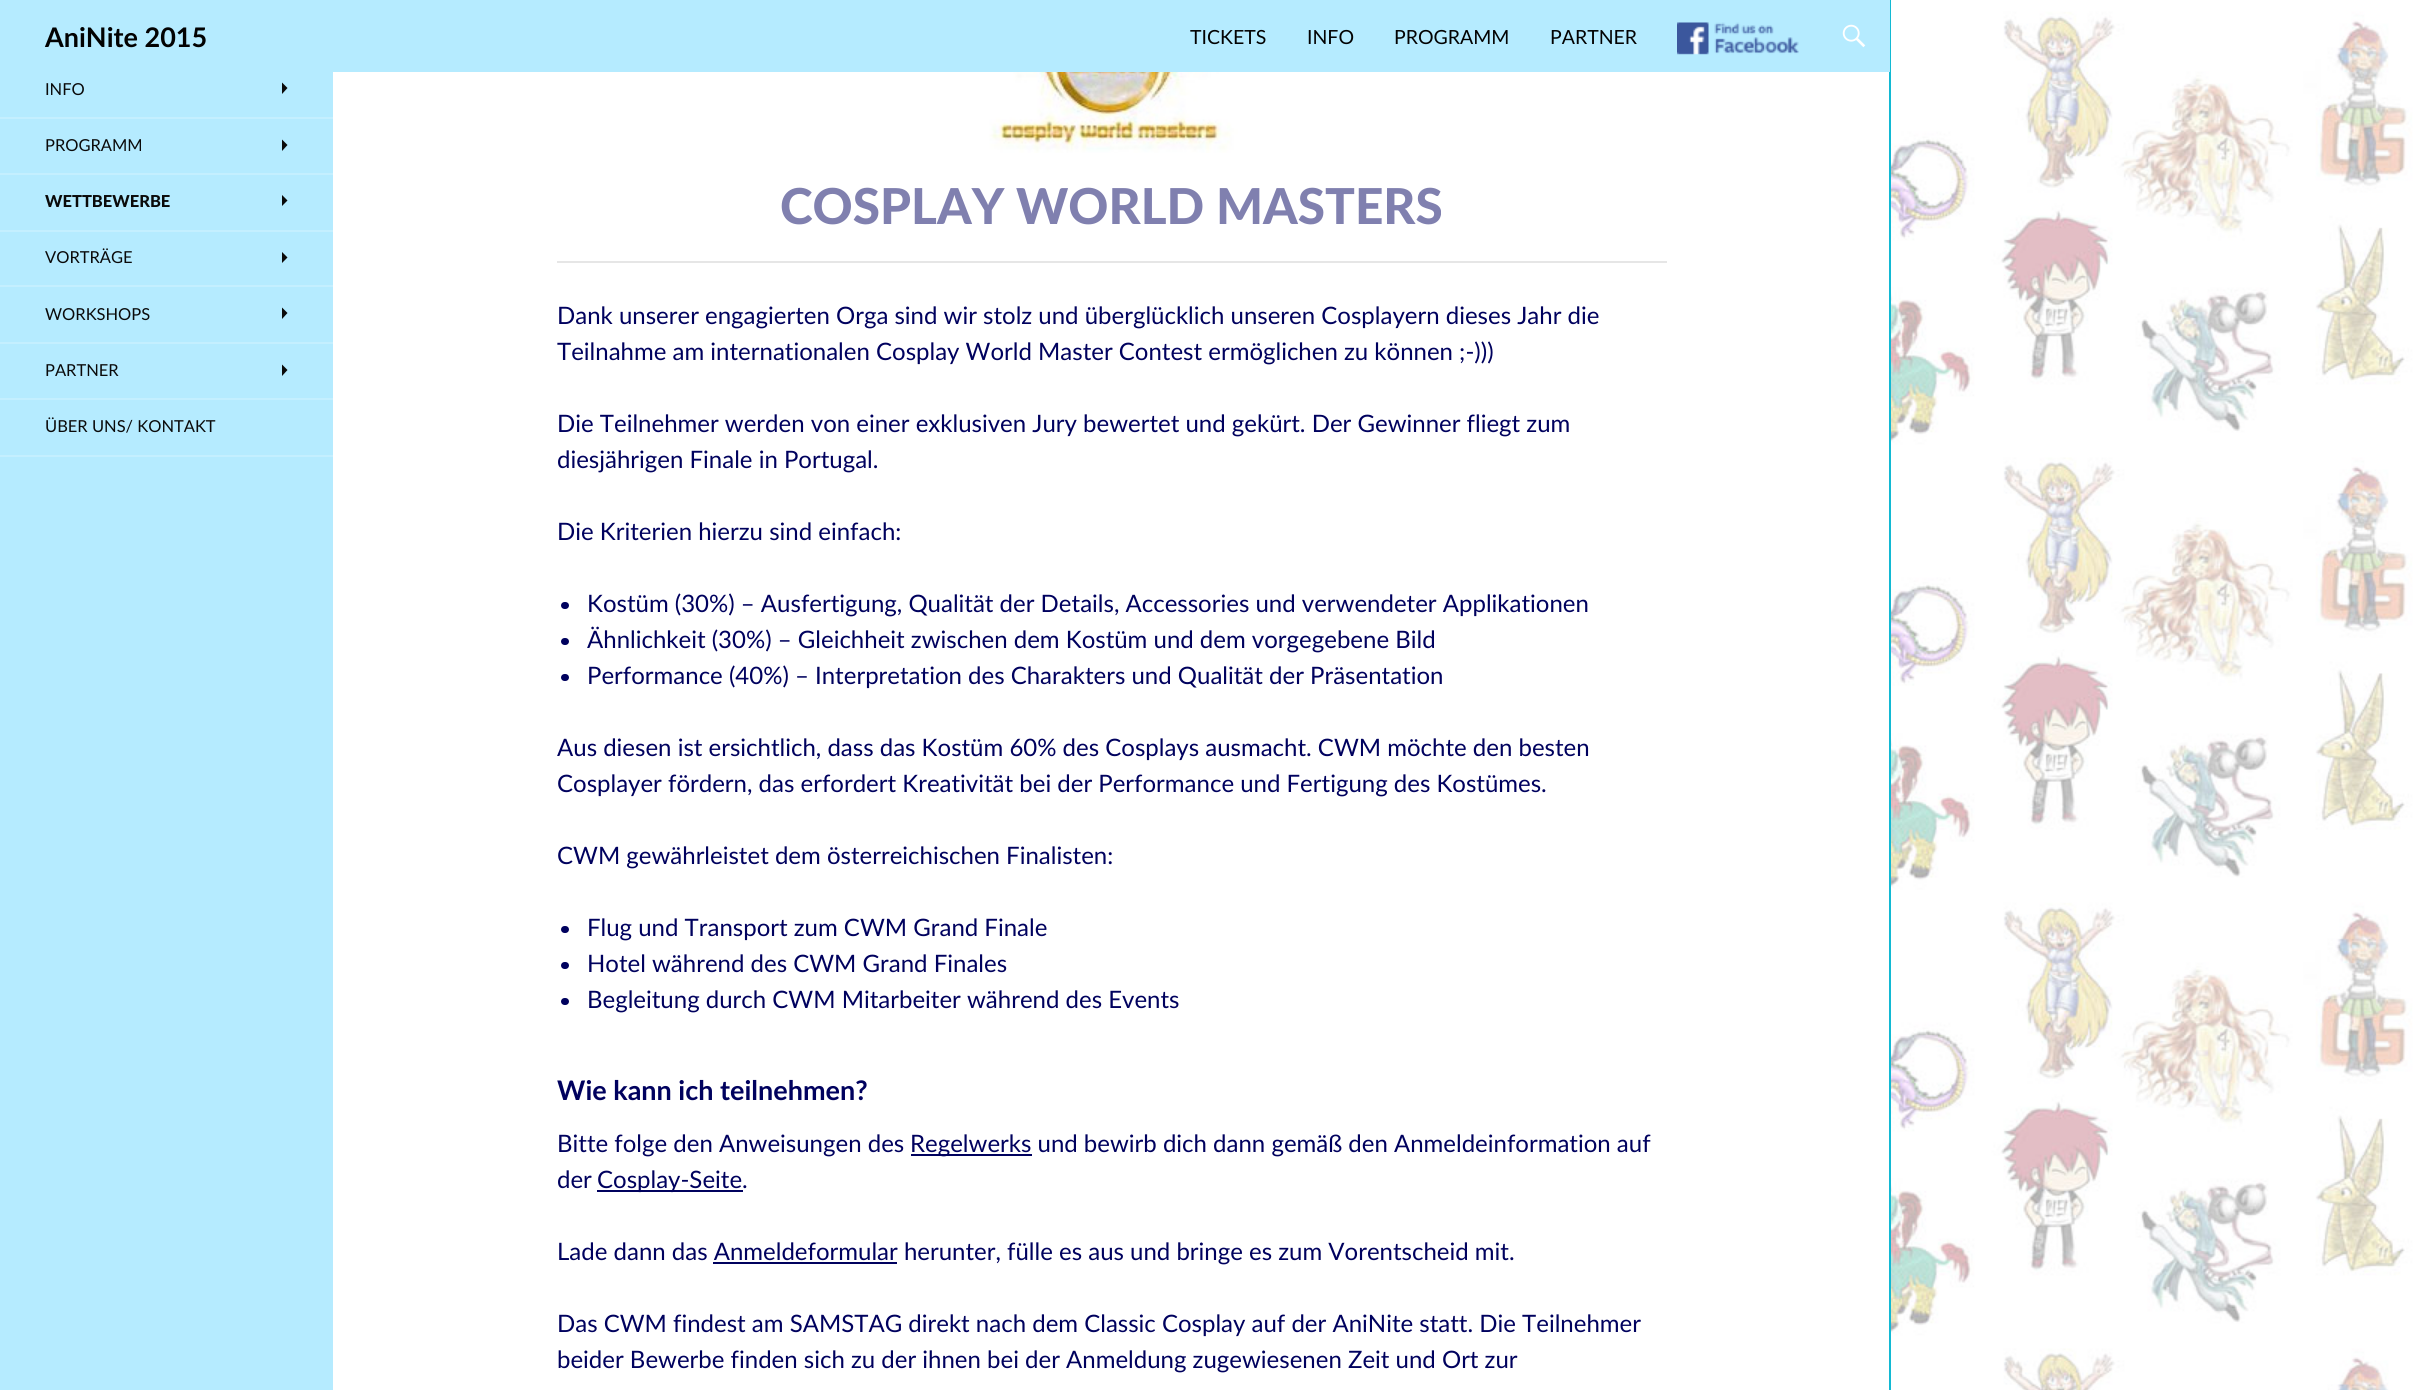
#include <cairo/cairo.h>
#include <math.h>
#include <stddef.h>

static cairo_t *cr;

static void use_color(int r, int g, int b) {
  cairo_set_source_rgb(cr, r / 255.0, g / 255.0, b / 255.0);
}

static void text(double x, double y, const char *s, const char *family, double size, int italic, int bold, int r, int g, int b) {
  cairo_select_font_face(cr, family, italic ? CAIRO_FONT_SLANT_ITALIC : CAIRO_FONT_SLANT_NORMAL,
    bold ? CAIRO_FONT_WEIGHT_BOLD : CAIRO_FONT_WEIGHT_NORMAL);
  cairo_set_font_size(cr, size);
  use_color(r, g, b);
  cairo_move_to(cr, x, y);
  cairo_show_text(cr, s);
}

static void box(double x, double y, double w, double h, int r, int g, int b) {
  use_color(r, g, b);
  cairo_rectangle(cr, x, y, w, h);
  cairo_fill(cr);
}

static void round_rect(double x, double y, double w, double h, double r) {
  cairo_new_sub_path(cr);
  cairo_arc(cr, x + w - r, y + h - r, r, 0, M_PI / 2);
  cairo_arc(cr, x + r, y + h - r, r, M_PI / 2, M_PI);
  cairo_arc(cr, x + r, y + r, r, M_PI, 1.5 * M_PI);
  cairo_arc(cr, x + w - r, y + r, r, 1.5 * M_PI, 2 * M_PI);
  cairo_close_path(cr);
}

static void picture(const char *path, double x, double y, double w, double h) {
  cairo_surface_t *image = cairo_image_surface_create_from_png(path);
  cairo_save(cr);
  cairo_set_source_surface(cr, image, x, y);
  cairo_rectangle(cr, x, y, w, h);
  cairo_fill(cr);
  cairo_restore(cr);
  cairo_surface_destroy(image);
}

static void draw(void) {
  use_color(255, 255, 255);
  cairo_paint(cr);
  picture("img_01.png", 1891, 0, 535, 1390);
  box(1889, 0, 2, 1390, 19, 185, 211);
  box(0, 0, 1890, 72, 181, 235, 255);
  picture("img_02.png", 1677, 22, 122, 33);
  picture("img_03.png", 1842, 24, 24, 24);
  box(0, 72, 333, 1318, 181, 235, 255);
  box(0, 455, 333, 2, 196, 239, 255);
  use_color(10, 10, 10);
  cairo_new_path(cr);
  cairo_move_to(cr, 282, 94);
  cairo_line_to(cr, 287.5, 88);
  cairo_line_to(cr, 282, 82.5);
  cairo_close_path(cr);
  cairo_fill(cr);
  box(0, 117, 333, 2, 196, 239, 255);
  use_color(10, 10, 10);
  cairo_new_path(cr);
  cairo_move_to(cr, 282, 151);
  cairo_line_to(cr, 287.5, 145);
  cairo_line_to(cr, 282, 139.5);
  cairo_close_path(cr);
  cairo_fill(cr);
  box(0, 173, 333, 2, 196, 239, 255);
  use_color(10, 10, 10);
  cairo_new_path(cr);
  cairo_move_to(cr, 282, 206);
  cairo_line_to(cr, 287.5, 200.5);
  cairo_line_to(cr, 282, 195);
  cairo_close_path(cr);
  cairo_fill(cr);
  box(0, 230, 333, 2, 196, 239, 255);
  use_color(10, 10, 10);
  cairo_new_path(cr);
  cairo_move_to(cr, 282, 263);
  cairo_line_to(cr, 287.5, 257.5);
  cairo_line_to(cr, 282, 252);
  cairo_close_path(cr);
  cairo_fill(cr);
  box(0, 285, 333, 2, 196, 239, 255);
  use_color(10, 10, 10);
  cairo_new_path(cr);
  cairo_move_to(cr, 282, 319);
  cairo_line_to(cr, 287.5, 313);
  cairo_line_to(cr, 282, 307.5);
  cairo_close_path(cr);
  cairo_fill(cr);
  box(0, 342, 333, 2, 196, 239, 255);
  use_color(10, 10, 10);
  cairo_new_path(cr);
  cairo_move_to(cr, 282, 376);
  cairo_line_to(cr, 287.5, 370);
  cairo_line_to(cr, 282, 364.5);
  cairo_close_path(cr);
  cairo_fill(cr);
  box(0, 398, 333, 2, 196, 239, 255);
  picture("img_04.png", 972, 72, 266, 81);
  box(557, 261, 1110, 2, 230, 230, 230);
  use_color(0, 1, 94);
  round_rect(561, 602, 8, 7, 3.5);
  cairo_fill(cr);
  round_rect(561, 638, 8, 7, 3.5);
  cairo_fill(cr);
  round_rect(561, 674, 8, 7, 3.5);
  cairo_fill(cr);
  round_rect(561, 926, 8, 7, 3.5);
  cairo_fill(cr);
  round_rect(561, 962, 8, 7, 3.5);
  cairo_fill(cr);
  round_rect(561, 998, 8, 7, 3.5);
  cairo_fill(cr);
  box(911, 1154, 121, 2, 0, 1, 94);
  box(597, 1190, 146, 2, 0, 1, 94);
  box(713, 1262, 184, 2, 0, 1, 94);
  text(45, 47, "AniNite 2015", "Lato", 27, 0, 1, 2, 2, 2);
  text(1190, 44, "TICKETS", "Lato", 19.5, 0, 0, 2, 2, 2);
  text(1307, 44, "INFO", "Lato", 19.5, 0, 0, 2, 2, 2);
  text(1394, 44, "PROGRAMM", "Lato", 19.5, 0, 0, 2, 2, 2);
  text(1550, 44, "PARTNER", "Lato", 19.5, 0, 0, 2, 2, 2);
  text(45, 95, "INFO", "Lato", 16.5, 0, 0, 10, 10, 10);
  text(45, 151, "PROGRAMM", "Lato", 16.5, 0, 0, 10, 10, 10);
  text(45, 207, "WETTBEWERBE", "Lato Black", 16.5, 0, 0, 10, 10, 10);
  text(45, 263, "VORTRÄGE", "Lato", 16.5, 0, 0, 10, 10, 10);
  text(45, 320, "WORKSHOPS", "Lato", 16.5, 0, 0, 10, 10, 10);
  text(45, 376, "PARTNER", "Lato", 16.5, 0, 0, 10, 10, 10);
  text(45, 432, "ÜBER UNS/ KONTAKT", "Lato", 16.5, 0, 0, 10, 10, 10);
  text(780, 224, "COSPLAY WORLD MASTERS", "Lato Black", 49.5, 0, 0, 128, 128, 175);
  text(557, 324, "Dank unserer engagierten Orga sind wir stolz und überglücklich unseren Cosplayern dieses Jahr die", "Lato", 24, 0, 0, 0, 1, 94);
  text(557, 360, "Teilnahme am internationalen Cosplay World Master Contest ermöglichen zu können ;-)))", "Lato", 24, 0, 0, 0, 1, 94);
  text(557, 432, "Die Teilnehmer werden von einer exklusiven Jury bewertet und gekürt. Der Gewinner fliegt zum", "Lato", 24, 0, 0, 0, 1, 94);
  text(557, 468, "diesjährigen Finale in Portugal.", "Lato", 24, 0, 0, 0, 1, 94);
  text(557, 540, "Die Kriterien hierzu sind einfach:", "Lato", 24, 0, 0, 0, 1, 94);
  text(587, 612, "Kostüm (30%) – Ausfertigung, Qualität der Details, Accessories und verwendeter Applikationen", "Lato", 24, 0, 0, 0, 1, 94);
  text(587, 648, "Ähnlichkeit (30%) – Gleichheit zwischen dem Kostüm und dem vorgegebene Bild", "Lato", 24, 0, 0, 0, 1, 94);
  text(587, 684, "Performance (40%) – Interpretation des Charakters und Qualität der Präsentation", "Lato", 24, 0, 0, 0, 1, 94);
  text(557, 756, "Aus diesen ist ersichtlich, dass das Kostüm 60% des Cosplays ausmacht. CWM möchte den besten", "Lato", 24, 0, 0, 0, 1, 94);
  text(557, 792, "Cosplayer fördern, das erfordert Kreativität bei der Performance und Fertigung des Kostümes.", "Lato", 24, 0, 0, 0, 1, 94);
  text(557, 864, "CWM gewährleistet dem österreichischen Finalisten:", "Lato", 24, 0, 0, 0, 1, 94);
  text(587, 936, "Flug und Transport zum CWM Grand Finale", "Lato", 24, 0, 0, 0, 1, 94);
  text(587, 972, "Hotel während des CWM Grand Finales", "Lato", 24, 0, 0, 0, 1, 94);
  text(587, 1008, "Begleitung durch CWM Mitarbeiter während des Events", "Lato", 24, 0, 0, 0, 1, 94);
  text(557, 1100, "Wie kann ich teilnehmen?", "Lato", 27, 0, 1, 0, 1, 94);
  text(557, 1152, "Bitte folge den Anweisungen des", "Lato", 24, 0, 0, 0, 1, 94);
  text(910, 1152, "Regelwerks und bewirb dich dann gemäß den Anmeldeinformation auf", "Lato", 24, 0, 0, 0, 1, 94);
  text(557, 1188, "der", "Lato", 24, 0, 0, 0, 1, 94);
  text(597, 1188, "Cosplay-Seite.", "Lato", 24, 0, 0, 0, 1, 94);
  text(557, 1260, "Lade dann das Anmeldeformular herunter, fülle es aus und bringe es zum Vorentscheid mit.", "Lato", 24, 0, 0, 0, 1, 94);
  text(557, 1332, "Das CWM findest am SAMSTAG direkt nach dem Classic Cosplay auf der AniNite statt. Die Teilnehmer", "Lato", 24, 0, 0, 0, 1, 94);
  text(557, 1368, "beider Bewerbe finden sich zu der ihnen bei der Anmeldung zugewiesenen Zeit und Ort zur", "Lato", 24, 0, 0, 0, 1, 94);
}

int main(void) {
  cairo_surface_t *surface = cairo_image_surface_create(CAIRO_FORMAT_RGB24, 2426, 1390);
  cr = cairo_create(surface);
  cairo_font_options_t *options = cairo_font_options_create();
  cairo_font_options_set_hint_metrics(options, CAIRO_HINT_METRICS_OFF);
  cairo_font_options_set_hint_style(options, CAIRO_HINT_STYLE_NONE);
  cairo_set_font_options(cr, options);
  cairo_set_miter_limit(cr, 4);
  draw();
  cairo_surface_write_to_png(surface, "out.png");
  cairo_font_options_destroy(options);
  cairo_destroy(cr);
  cairo_surface_destroy(surface);
  return 0;
}
